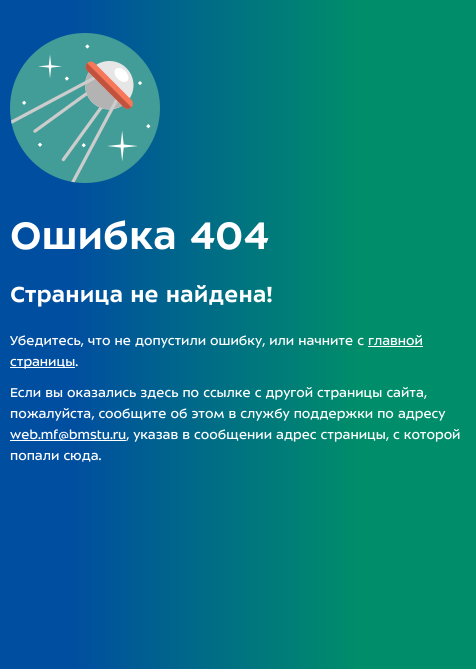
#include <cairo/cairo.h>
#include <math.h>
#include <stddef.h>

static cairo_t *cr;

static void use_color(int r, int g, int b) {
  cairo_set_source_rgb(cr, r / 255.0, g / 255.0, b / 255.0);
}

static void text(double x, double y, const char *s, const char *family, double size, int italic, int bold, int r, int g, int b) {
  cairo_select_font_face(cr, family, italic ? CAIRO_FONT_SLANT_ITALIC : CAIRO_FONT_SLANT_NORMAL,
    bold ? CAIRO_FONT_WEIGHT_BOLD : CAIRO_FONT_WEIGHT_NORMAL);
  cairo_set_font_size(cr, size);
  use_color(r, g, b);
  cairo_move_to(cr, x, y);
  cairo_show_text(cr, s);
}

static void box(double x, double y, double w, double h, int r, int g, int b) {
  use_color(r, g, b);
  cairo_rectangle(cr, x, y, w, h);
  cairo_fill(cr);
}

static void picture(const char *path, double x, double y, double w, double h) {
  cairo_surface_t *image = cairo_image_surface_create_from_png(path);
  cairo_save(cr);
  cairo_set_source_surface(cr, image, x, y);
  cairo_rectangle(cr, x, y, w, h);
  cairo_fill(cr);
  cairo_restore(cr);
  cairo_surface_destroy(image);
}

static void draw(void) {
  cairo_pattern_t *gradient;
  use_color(255, 255, 255);
  cairo_paint(cr);
  gradient = cairo_pattern_create_linear(0, 250, 476, 250);
  cairo_pattern_add_color_stop_rgba(gradient, 0.15, 0, 0.306, 0.627, 1);
  cairo_pattern_add_color_stop_rgba(gradient, 0.75, 0, 0.553, 0.416, 1);
  cairo_set_source(cr, gradient);
  cairo_pattern_destroy(gradient);
  cairo_rectangle(cr, 0, 0, 476, 669);
  cairo_fill(cr);
  picture("img_01.png", 10, 33, 150, 150);
  box(368, 346, 55, 1, 255, 255, 255);
  box(10, 367, 65, 1, 255, 255, 255);
  box(10, 440, 116, 1, 255, 255, 255);
  text(10, 249, "Ошибка 404", "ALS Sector", 42, 0, 1, 255, 255, 255);
  text(10, 302, "Страница не найдена!", "ALS Sector", 24, 0, 1, 255, 255, 255);
  text(10, 345, "Убедитесь, что не допустили ошибку, или начните с главной", "ALS Sector", 14, 0, 0, 255, 255, 255);
  text(10, 366, "страницы.", "ALS Sector", 14, 0, 0, 255, 255, 255);
  text(10, 397, "Если вы оказались здесь по ссылке с другой страницы сайта,", "ALS Sector", 14, 0, 0, 255, 255, 255);
  text(10, 418, "пожалуйста, сообщите об этом в службу поддержки по адресу", "ALS Sector", 14, 0, 0, 255, 255, 255);
  text(10, 439, "web.mf@bmstu.ru, указав в сообщении адрес страницы, с которой", "ALS Sector", 14, 0, 0, 255, 255, 255);
  text(10, 460, "попали сюда.", "ALS Sector", 14, 0, 0, 255, 255, 255);
}

int main(void) {
  cairo_surface_t *surface = cairo_image_surface_create(CAIRO_FORMAT_RGB24, 476, 669);
  cr = cairo_create(surface);
  cairo_font_options_t *options = cairo_font_options_create();
  cairo_font_options_set_hint_metrics(options, CAIRO_HINT_METRICS_OFF);
  cairo_font_options_set_hint_style(options, CAIRO_HINT_STYLE_NONE);
  cairo_set_font_options(cr, options);
  cairo_set_miter_limit(cr, 4);
  draw();
  cairo_surface_write_to_png(surface, "out.png");
  cairo_font_options_destroy(options);
  cairo_destroy(cr);
  cairo_surface_destroy(surface);
  return 0;
}
